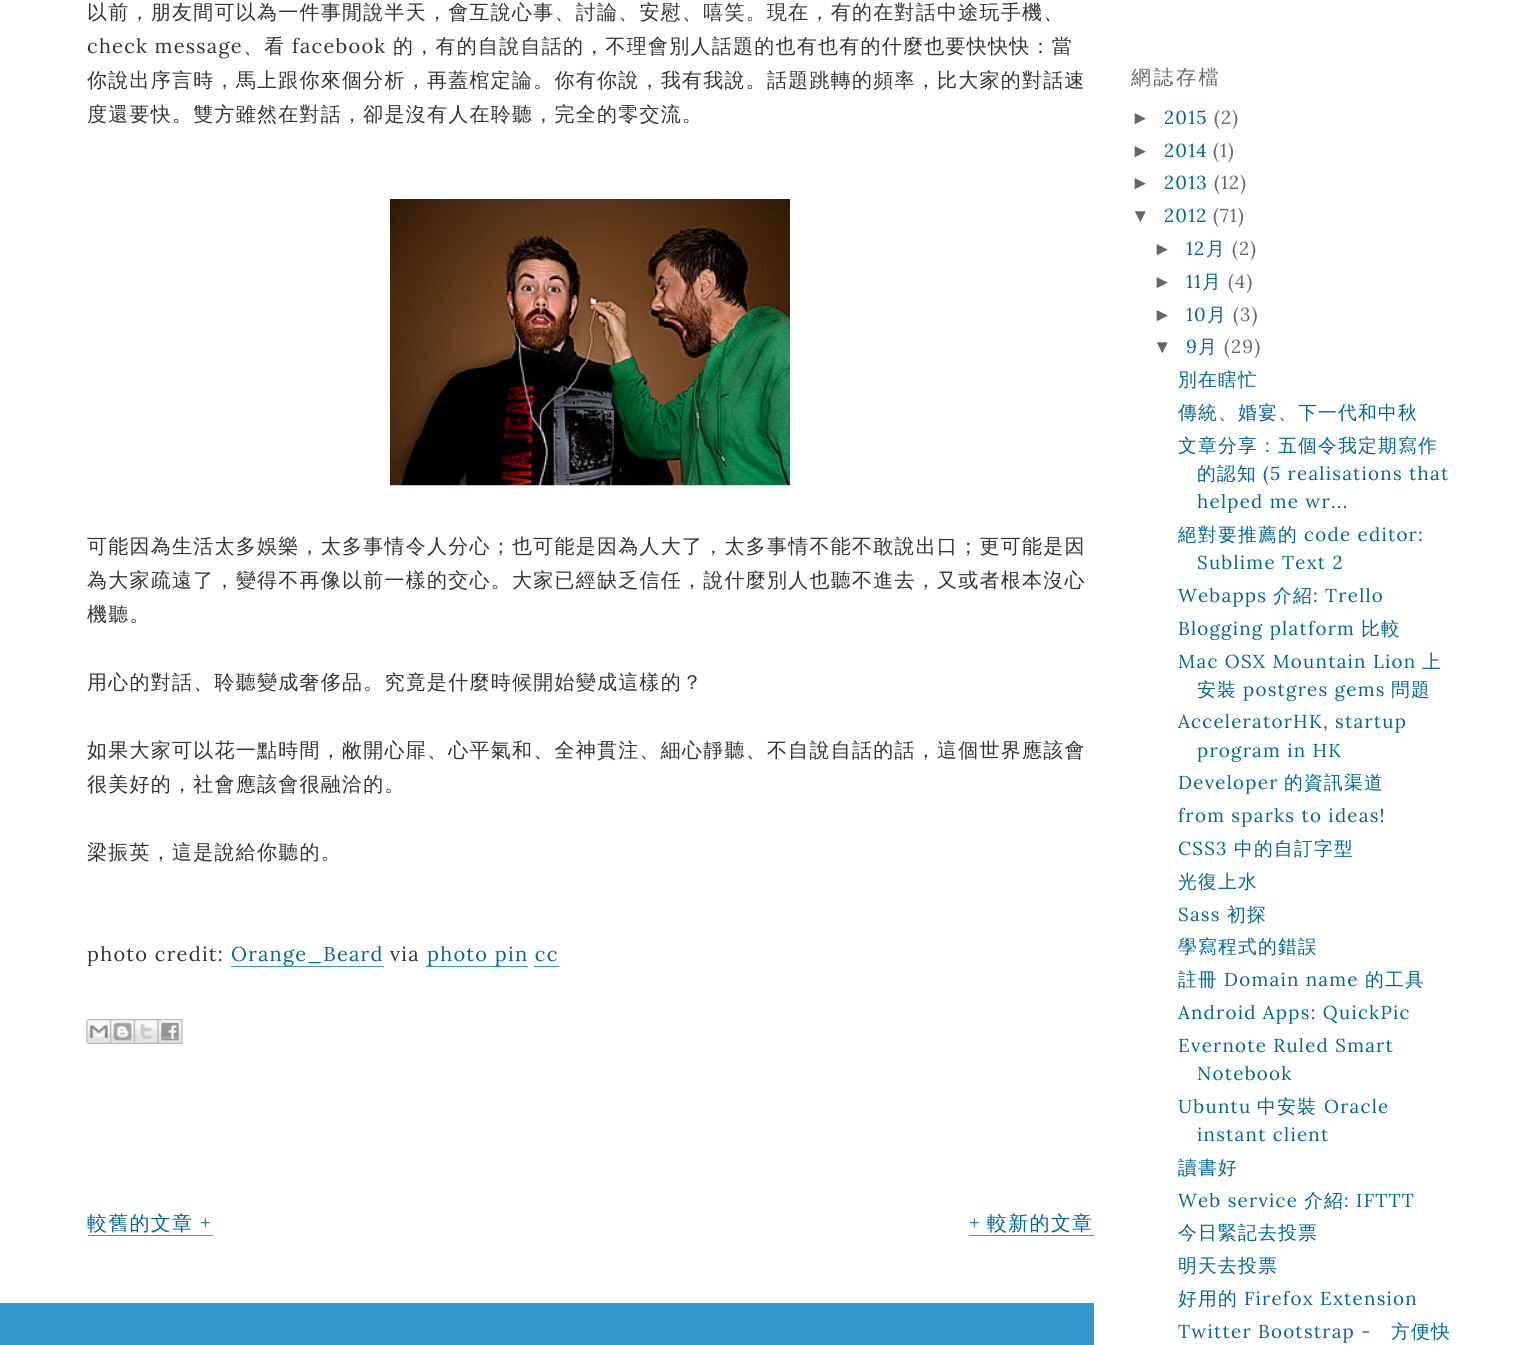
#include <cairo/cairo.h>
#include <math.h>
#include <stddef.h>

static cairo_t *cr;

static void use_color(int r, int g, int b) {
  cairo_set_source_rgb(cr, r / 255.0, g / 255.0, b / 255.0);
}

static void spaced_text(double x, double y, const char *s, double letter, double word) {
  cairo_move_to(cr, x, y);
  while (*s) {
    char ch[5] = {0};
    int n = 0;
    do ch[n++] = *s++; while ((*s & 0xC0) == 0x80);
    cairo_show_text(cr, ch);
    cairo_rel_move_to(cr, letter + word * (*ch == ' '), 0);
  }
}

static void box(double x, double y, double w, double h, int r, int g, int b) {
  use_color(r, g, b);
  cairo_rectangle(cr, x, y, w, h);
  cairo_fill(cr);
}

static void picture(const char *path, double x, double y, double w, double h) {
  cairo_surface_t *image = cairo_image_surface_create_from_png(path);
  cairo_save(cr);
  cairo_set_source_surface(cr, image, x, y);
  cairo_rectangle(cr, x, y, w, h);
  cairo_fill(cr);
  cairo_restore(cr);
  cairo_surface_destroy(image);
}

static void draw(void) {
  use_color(255, 255, 255);
  cairo_paint(cr);
  picture("img_01.png", 390, 199, 400, 287);
  box(231, 966, 153, 1, 51, 153, 204);
  box(426, 966, 102, 1, 51, 153, 204);
  picture("img_02.png", 86, 1019, 24, 25);
  picture("img_03.png", 110, 1019, 24, 25);
  picture("img_04.png", 133, 1019, 25, 25);
  picture("img_05.png", 157, 1019, 26, 25);
  box(88, 1235, 125, 1, 51, 153, 204);
  box(969, 1235, 125, 1, 51, 153, 204);
  box(0, 1303, 1094, 42, 51, 153, 204);
  cairo_select_font_face(cr, "WenQuanYi Zen Hei Medium", CAIRO_FONT_SLANT_NORMAL, CAIRO_FONT_WEIGHT_NORMAL);
  cairo_set_font_size(cr, 20);
  use_color(51, 51, 51);
  spaced_text(87, 19, "以前，朋友間可以為一件事閒說半天，會互說心事、討論、安慰、嘻笑。現在，有的在對話中途玩手機、", 1.25, 0);
  cairo_select_font_face(cr, "Lora", CAIRO_FONT_SLANT_NORMAL, CAIRO_FONT_WEIGHT_NORMAL);
  spaced_text(87, 53, "check message", 1.25, 0);
  cairo_select_font_face(cr, "WenQuanYi Zen Hei Medium", CAIRO_FONT_SLANT_NORMAL, CAIRO_FONT_WEIGHT_NORMAL);
  spaced_text(243, 53, "、看", 1.25, 0);
  cairo_select_font_face(cr, "Lora", CAIRO_FONT_SLANT_NORMAL, CAIRO_FONT_WEIGHT_NORMAL);
  spaced_text(292, 53, "facebook", 1.25, 0);
  cairo_select_font_face(cr, "WenQuanYi Zen Hei Medium", CAIRO_FONT_SLANT_NORMAL, CAIRO_FONT_WEIGHT_NORMAL);
  spaced_text(393, 53, "的，有的自說自話的，不理會別人話題的也有也有的什麼也要快快快：當", 1.25, 0);
  spaced_text(87, 87, "你說出序言時，馬上跟你來個分析，再蓋棺定論。你有你說，我有我說。話題跳轉的頻率，比大家的對話速", 1.25, 0);
  spaced_text(87, 121, "度還要快。雙方雖然在對話，卻是沒有人在聆聽，完全的零交流。", 1.25, 0);
  spaced_text(87, 553, "可能因為生活太多娛樂，太多事情令人分心；也可能是因為人大了，太多事情不能不敢說出口；更可能是因", 1.25, 0);
  spaced_text(87, 587, "為大家疏遠了，變得不再像以前一樣的交心。大家已經缺乏信任，說什麼別人也聽不進去，又或者根本沒心", 1.25, 0);
  spaced_text(87, 621, "機聽。", 1.25, 0);
  spaced_text(87, 689, "用心的對話、聆聽變成奢侈品。究竟是什麼時候開始變成這樣的？", 1.25, 0);
  spaced_text(87, 757, "如果大家可以花一點時間，敝開心屝、心平氣和、全神貫注、細心靜聽、不自說自話的話，這個世界應該會", 1.25, 0);
  spaced_text(87, 791, "很美好的，社會應該會很融洽的。", 1.25, 0);
  spaced_text(87, 859, "梁振英，這是說給你聽的。", 1.25, 0);
  cairo_select_font_face(cr, "Lora", CAIRO_FONT_SLANT_NORMAL, CAIRO_FONT_WEIGHT_NORMAL);
  spaced_text(87, 961, "photo credit:", 1.25, 0);
  use_color(0, 102, 153);
  spaced_text(231, 961, "Orange_Beard", 1.25, 0);
  use_color(51, 51, 51);
  spaced_text(390, 961, "via", 1.25, 0);
  use_color(0, 102, 153);
  spaced_text(427, 961, "photo pin cc", 1.25, 0);
  box(534, 966, 25, 1, 51, 153, 204);
  cairo_select_font_face(cr, "WenQuanYi Zen Hei Medium", CAIRO_FONT_SLANT_NORMAL, CAIRO_FONT_WEIGHT_NORMAL);
  use_color(0, 102, 153);
  spaced_text(87, 1230, "較舊的文章", 1.25, 0);
  cairo_select_font_face(cr, "Lora", CAIRO_FONT_SLANT_NORMAL, CAIRO_FONT_WEIGHT_NORMAL);
  spaced_text(200, 1230, "+", 1.25, 0);
  spaced_text(969, 1230, "+", 1.25, 0);
  cairo_select_font_face(cr, "WenQuanYi Zen Hei Medium", CAIRO_FONT_SLANT_NORMAL, CAIRO_FONT_WEIGHT_NORMAL);
  spaced_text(987, 1230, "較新的文章", 1.25, 0);
  use_color(102, 102, 102);
  spaced_text(1131, 84, "網誌存檔", 2.5, 0);
  cairo_select_font_face(cr, "Liberation Sans", CAIRO_FONT_SLANT_NORMAL, CAIRO_FONT_WEIGHT_NORMAL);
  cairo_set_font_size(cr, 18.75);
  spaced_text(1131, 124, "►", 1.25, 0);
  cairo_select_font_face(cr, "Lora", CAIRO_FONT_SLANT_NORMAL, CAIRO_FONT_WEIGHT_NORMAL);
  use_color(0, 102, 153);
  spaced_text(1164, 124, "2015", 1.25, 0);
  use_color(102, 102, 102);
  spaced_text(1214, 124, "(2)", 1.25, 0);
  cairo_select_font_face(cr, "Liberation Sans", CAIRO_FONT_SLANT_NORMAL, CAIRO_FONT_WEIGHT_NORMAL);
  spaced_text(1131, 157, "►", 1.25, 0);
  cairo_select_font_face(cr, "Lora", CAIRO_FONT_SLANT_NORMAL, CAIRO_FONT_WEIGHT_NORMAL);
  use_color(0, 102, 153);
  spaced_text(1164, 157, "2014", 1.25, 0);
  use_color(102, 102, 102);
  spaced_text(1213, 157, "(1)", 1.25, 0);
  cairo_select_font_face(cr, "Liberation Sans", CAIRO_FONT_SLANT_NORMAL, CAIRO_FONT_WEIGHT_NORMAL);
  spaced_text(1131, 189, "►", 1.25, 0);
  cairo_select_font_face(cr, "Lora", CAIRO_FONT_SLANT_NORMAL, CAIRO_FONT_WEIGHT_NORMAL);
  use_color(0, 102, 153);
  spaced_text(1164, 189, "2013", 1.25, 0);
  use_color(102, 102, 102);
  spaced_text(1214, 189, "(12)", 1.25, 0);
  cairo_select_font_face(cr, "Liberation Sans", CAIRO_FONT_SLANT_NORMAL, CAIRO_FONT_WEIGHT_NORMAL);
  spaced_text(1131, 222, "▼", 1.25, 0);
  cairo_select_font_face(cr, "Lora", CAIRO_FONT_SLANT_NORMAL, CAIRO_FONT_WEIGHT_NORMAL);
  use_color(0, 102, 153);
  spaced_text(1164, 222, "2012", 1.25, 0);
  use_color(102, 102, 102);
  spaced_text(1213, 222, "(71)", 1.25, 0);
  cairo_select_font_face(cr, "Liberation Sans", CAIRO_FONT_SLANT_NORMAL, CAIRO_FONT_WEIGHT_NORMAL);
  spaced_text(1153, 255, "►", 1.25, 0);
  cairo_select_font_face(cr, "Lora", CAIRO_FONT_SLANT_NORMAL, CAIRO_FONT_WEIGHT_NORMAL);
  use_color(0, 102, 153);
  spaced_text(1186, 255, "12", 1.25, 0);
  cairo_select_font_face(cr, "WenQuanYi Zen Hei Medium", CAIRO_FONT_SLANT_NORMAL, CAIRO_FONT_WEIGHT_NORMAL);
  spaced_text(1206, 255, "月", 1.25, 0);
  cairo_select_font_face(cr, "Lora", CAIRO_FONT_SLANT_NORMAL, CAIRO_FONT_WEIGHT_NORMAL);
  use_color(102, 102, 102);
  spaced_text(1232, 255, "(2)", 1.25, 0);
  cairo_select_font_face(cr, "Liberation Sans", CAIRO_FONT_SLANT_NORMAL, CAIRO_FONT_WEIGHT_NORMAL);
  spaced_text(1153, 288, "►", 1.25, 0);
  cairo_select_font_face(cr, "Lora", CAIRO_FONT_SLANT_NORMAL, CAIRO_FONT_WEIGHT_NORMAL);
  use_color(0, 102, 153);
  spaced_text(1186, 288, "11", 1.25, 0);
  cairo_select_font_face(cr, "WenQuanYi Zen Hei Medium", CAIRO_FONT_SLANT_NORMAL, CAIRO_FONT_WEIGHT_NORMAL);
  spaced_text(1202, 288, "月", 1.25, 0);
  cairo_select_font_face(cr, "Lora", CAIRO_FONT_SLANT_NORMAL, CAIRO_FONT_WEIGHT_NORMAL);
  use_color(102, 102, 102);
  spaced_text(1228, 288, "(4)", 1.25, 0);
  cairo_select_font_face(cr, "Liberation Sans", CAIRO_FONT_SLANT_NORMAL, CAIRO_FONT_WEIGHT_NORMAL);
  spaced_text(1153, 321, "►", 1.25, 0);
  cairo_select_font_face(cr, "Lora", CAIRO_FONT_SLANT_NORMAL, CAIRO_FONT_WEIGHT_NORMAL);
  use_color(0, 102, 153);
  spaced_text(1186, 321, "10", 1.25, 0);
  cairo_select_font_face(cr, "WenQuanYi Zen Hei Medium", CAIRO_FONT_SLANT_NORMAL, CAIRO_FONT_WEIGHT_NORMAL);
  spaced_text(1207, 321, "月", 1.25, 0);
  cairo_select_font_face(cr, "Lora", CAIRO_FONT_SLANT_NORMAL, CAIRO_FONT_WEIGHT_NORMAL);
  use_color(102, 102, 102);
  spaced_text(1233, 321, "(3)", 1.25, 0);
  cairo_select_font_face(cr, "Liberation Sans", CAIRO_FONT_SLANT_NORMAL, CAIRO_FONT_WEIGHT_NORMAL);
  spaced_text(1153, 353, "▼", 1.25, 0);
  cairo_select_font_face(cr, "Lora", CAIRO_FONT_SLANT_NORMAL, CAIRO_FONT_WEIGHT_NORMAL);
  use_color(0, 102, 153);
  spaced_text(1186, 353, "9", 1.25, 0);
  cairo_select_font_face(cr, "WenQuanYi Zen Hei Medium", CAIRO_FONT_SLANT_NORMAL, CAIRO_FONT_WEIGHT_NORMAL);
  spaced_text(1198, 353, "月", 1.25, 0);
  cairo_select_font_face(cr, "Lora", CAIRO_FONT_SLANT_NORMAL, CAIRO_FONT_WEIGHT_NORMAL);
  use_color(102, 102, 102);
  spaced_text(1224, 353, "(29)", 1.25, 0);
  cairo_select_font_face(cr, "WenQuanYi Zen Hei Medium", CAIRO_FONT_SLANT_NORMAL, CAIRO_FONT_WEIGHT_NORMAL);
  use_color(0, 102, 153);
  spaced_text(1178, 386, "別在瞎忙", 1.25, 0);
  spaced_text(1178, 419, "傳統、婚宴、下一代和中秋", 1.25, 0);
  spaced_text(1178, 452, "文章分享：五個令我定期寫作", 1.25, 0);
  spaced_text(1197, 480, "的認知", 1.25, 0);
  cairo_select_font_face(cr, "Lora", CAIRO_FONT_SLANT_NORMAL, CAIRO_FONT_WEIGHT_NORMAL);
  spaced_text(1263, 480, "(5 realisations that", 1.25, 0);
  spaced_text(1197, 508, "helped me wr...", 1.25, 0);
  cairo_select_font_face(cr, "WenQuanYi Zen Hei Medium", CAIRO_FONT_SLANT_NORMAL, CAIRO_FONT_WEIGHT_NORMAL);
  spaced_text(1178, 541, "絕對要推薦的", 1.25, 0);
  cairo_select_font_face(cr, "Lora", CAIRO_FONT_SLANT_NORMAL, CAIRO_FONT_WEIGHT_NORMAL);
  spaced_text(1304, 541, "code editor:", 1.25, 0);
  spaced_text(1197, 569, "Sublime Text 2", 1.25, 0);
  spaced_text(1178, 602, "Webapps", 1.25, 0);
  cairo_select_font_face(cr, "WenQuanYi Zen Hei Medium", CAIRO_FONT_SLANT_NORMAL, CAIRO_FONT_WEIGHT_NORMAL);
  spaced_text(1273, 602, "介紹", 1.25, 0);
  cairo_select_font_face(cr, "Lora", CAIRO_FONT_SLANT_NORMAL, CAIRO_FONT_WEIGHT_NORMAL);
  spaced_text(1313, 602, ": Trello", 1.25, 0);
  spaced_text(1178, 635, "Blogging platform", 1.25, 0);
  cairo_select_font_face(cr, "WenQuanYi Zen Hei Medium", CAIRO_FONT_SLANT_NORMAL, CAIRO_FONT_WEIGHT_NORMAL);
  spaced_text(1361, 635, "比較", 1.25, 0);
  cairo_select_font_face(cr, "Lora", CAIRO_FONT_SLANT_NORMAL, CAIRO_FONT_WEIGHT_NORMAL);
  spaced_text(1178, 668, "Mac OSX Mountain Lion", 1.25, 0);
  cairo_select_font_face(cr, "WenQuanYi Zen Hei Medium", CAIRO_FONT_SLANT_NORMAL, CAIRO_FONT_WEIGHT_NORMAL);
  spaced_text(1422, 668, "上", 1.25, 0);
  spaced_text(1197, 696, "安裝", 1.25, 0);
  cairo_select_font_face(cr, "Lora", CAIRO_FONT_SLANT_NORMAL, CAIRO_FONT_WEIGHT_NORMAL);
  spaced_text(1243, 696, "postgres gems", 1.25, 0);
  cairo_select_font_face(cr, "WenQuanYi Zen Hei Medium", CAIRO_FONT_SLANT_NORMAL, CAIRO_FONT_WEIGHT_NORMAL);
  spaced_text(1391, 696, "問題", 1.25, 0);
  cairo_select_font_face(cr, "Lora", CAIRO_FONT_SLANT_NORMAL, CAIRO_FONT_WEIGHT_NORMAL);
  spaced_text(1178, 728, "AcceleratorHK, startup", 1.25, 0);
  spaced_text(1197, 757, "program in HK", 1.25, 0);
  spaced_text(1178, 789, "Developer", 1.25, 0);
  cairo_select_font_face(cr, "WenQuanYi Zen Hei Medium", CAIRO_FONT_SLANT_NORMAL, CAIRO_FONT_WEIGHT_NORMAL);
  spaced_text(1284, 789, "的資訊渠道", 1.25, 0);
  cairo_select_font_face(cr, "Lora", CAIRO_FONT_SLANT_NORMAL, CAIRO_FONT_WEIGHT_NORMAL);
  spaced_text(1178, 822, "from sparks to ideas!", 1.25, 0);
  spaced_text(1178, 855, "CSS3", 1.25, 0);
  cairo_select_font_face(cr, "WenQuanYi Zen Hei Medium", CAIRO_FONT_SLANT_NORMAL, CAIRO_FONT_WEIGHT_NORMAL);
  spaced_text(1234, 855, "中的自訂字型", 1.25, 0);
  spaced_text(1178, 888, "光復上水", 1.25, 0);
  cairo_select_font_face(cr, "Lora", CAIRO_FONT_SLANT_NORMAL, CAIRO_FONT_WEIGHT_NORMAL);
  spaced_text(1178, 921, "Sass", 1.25, 0);
  cairo_select_font_face(cr, "WenQuanYi Zen Hei Medium", CAIRO_FONT_SLANT_NORMAL, CAIRO_FONT_WEIGHT_NORMAL);
  spaced_text(1227, 921, "初探", 1.25, 0);
  spaced_text(1178, 953, "學寫程式的錯誤", 1.25, 0);
  spaced_text(1178, 986, "註冊", 1.25, 0);
  cairo_select_font_face(cr, "Lora", CAIRO_FONT_SLANT_NORMAL, CAIRO_FONT_WEIGHT_NORMAL);
  spaced_text(1224, 986, "Domain name", 1.25, 0);
  cairo_select_font_face(cr, "WenQuanYi Zen Hei Medium", CAIRO_FONT_SLANT_NORMAL, CAIRO_FONT_WEIGHT_NORMAL);
  spaced_text(1365, 986, "的工具", 1.25, 0);
  cairo_select_font_face(cr, "Lora", CAIRO_FONT_SLANT_NORMAL, CAIRO_FONT_WEIGHT_NORMAL);
  spaced_text(1178, 1019, "Android Apps: QuickPic", 1.25, 0);
  spaced_text(1178, 1052, "Evernote Ruled Smart", 1.25, 0);
  spaced_text(1197, 1080, "Notebook", 1.25, 0);
  spaced_text(1178, 1113, "Ubuntu", 1.25, 0);
  cairo_select_font_face(cr, "WenQuanYi Zen Hei Medium", CAIRO_FONT_SLANT_NORMAL, CAIRO_FONT_WEIGHT_NORMAL);
  spaced_text(1257, 1113, "中安裝", 1.25, 0);
  cairo_select_font_face(cr, "Lora", CAIRO_FONT_SLANT_NORMAL, CAIRO_FONT_WEIGHT_NORMAL);
  spaced_text(1324, 1113, "Oracle", 1.25, 0);
  spaced_text(1197, 1141, "instant client", 1.25, 0);
  cairo_select_font_face(cr, "WenQuanYi Zen Hei Medium", CAIRO_FONT_SLANT_NORMAL, CAIRO_FONT_WEIGHT_NORMAL);
  spaced_text(1178, 1174, "讀書好", 1.25, 0);
  cairo_select_font_face(cr, "Lora", CAIRO_FONT_SLANT_NORMAL, CAIRO_FONT_WEIGHT_NORMAL);
  spaced_text(1178, 1207, "Web service", 1.25, 0);
  cairo_select_font_face(cr, "WenQuanYi Zen Hei Medium", CAIRO_FONT_SLANT_NORMAL, CAIRO_FONT_WEIGHT_NORMAL);
  spaced_text(1304, 1207, "介紹", 1.25, 0);
  cairo_select_font_face(cr, "Lora", CAIRO_FONT_SLANT_NORMAL, CAIRO_FONT_WEIGHT_NORMAL);
  spaced_text(1344, 1207, ": IFTTT", 1.25, 0);
  cairo_select_font_face(cr, "WenQuanYi Zen Hei Medium", CAIRO_FONT_SLANT_NORMAL, CAIRO_FONT_WEIGHT_NORMAL);
  spaced_text(1178, 1239, "今日緊記去投票", 1.25, 0);
  spaced_text(1178, 1272, "明天去投票", 1.25, 0);
  spaced_text(1178, 1305, "好用的", 1.25, 0);
  cairo_select_font_face(cr, "Lora", CAIRO_FONT_SLANT_NORMAL, CAIRO_FONT_WEIGHT_NORMAL);
  spaced_text(1244, 1305, "Firefox Extension", 1.25, 0);
  spaced_text(1178, 1338, "Twitter Bootstrap -", 1.25, 0);
  cairo_select_font_face(cr, "WenQuanYi Zen Hei Medium", CAIRO_FONT_SLANT_NORMAL, CAIRO_FONT_WEIGHT_NORMAL);
  spaced_text(1391, 1338, "方便快", 1.25, 0);
}

int main(void) {
  cairo_surface_t *surface = cairo_image_surface_create(CAIRO_FORMAT_RGB24, 1532, 1345);
  cr = cairo_create(surface);
  cairo_font_options_t *options = cairo_font_options_create();
  cairo_font_options_set_hint_metrics(options, CAIRO_HINT_METRICS_OFF);
  cairo_font_options_set_hint_style(options, CAIRO_HINT_STYLE_NONE);
  cairo_set_font_options(cr, options);
  cairo_set_miter_limit(cr, 4);
  draw();
  cairo_surface_write_to_png(surface, "out.png");
  cairo_font_options_destroy(options);
  cairo_destroy(cr);
  cairo_surface_destroy(surface);
  return 0;
}
